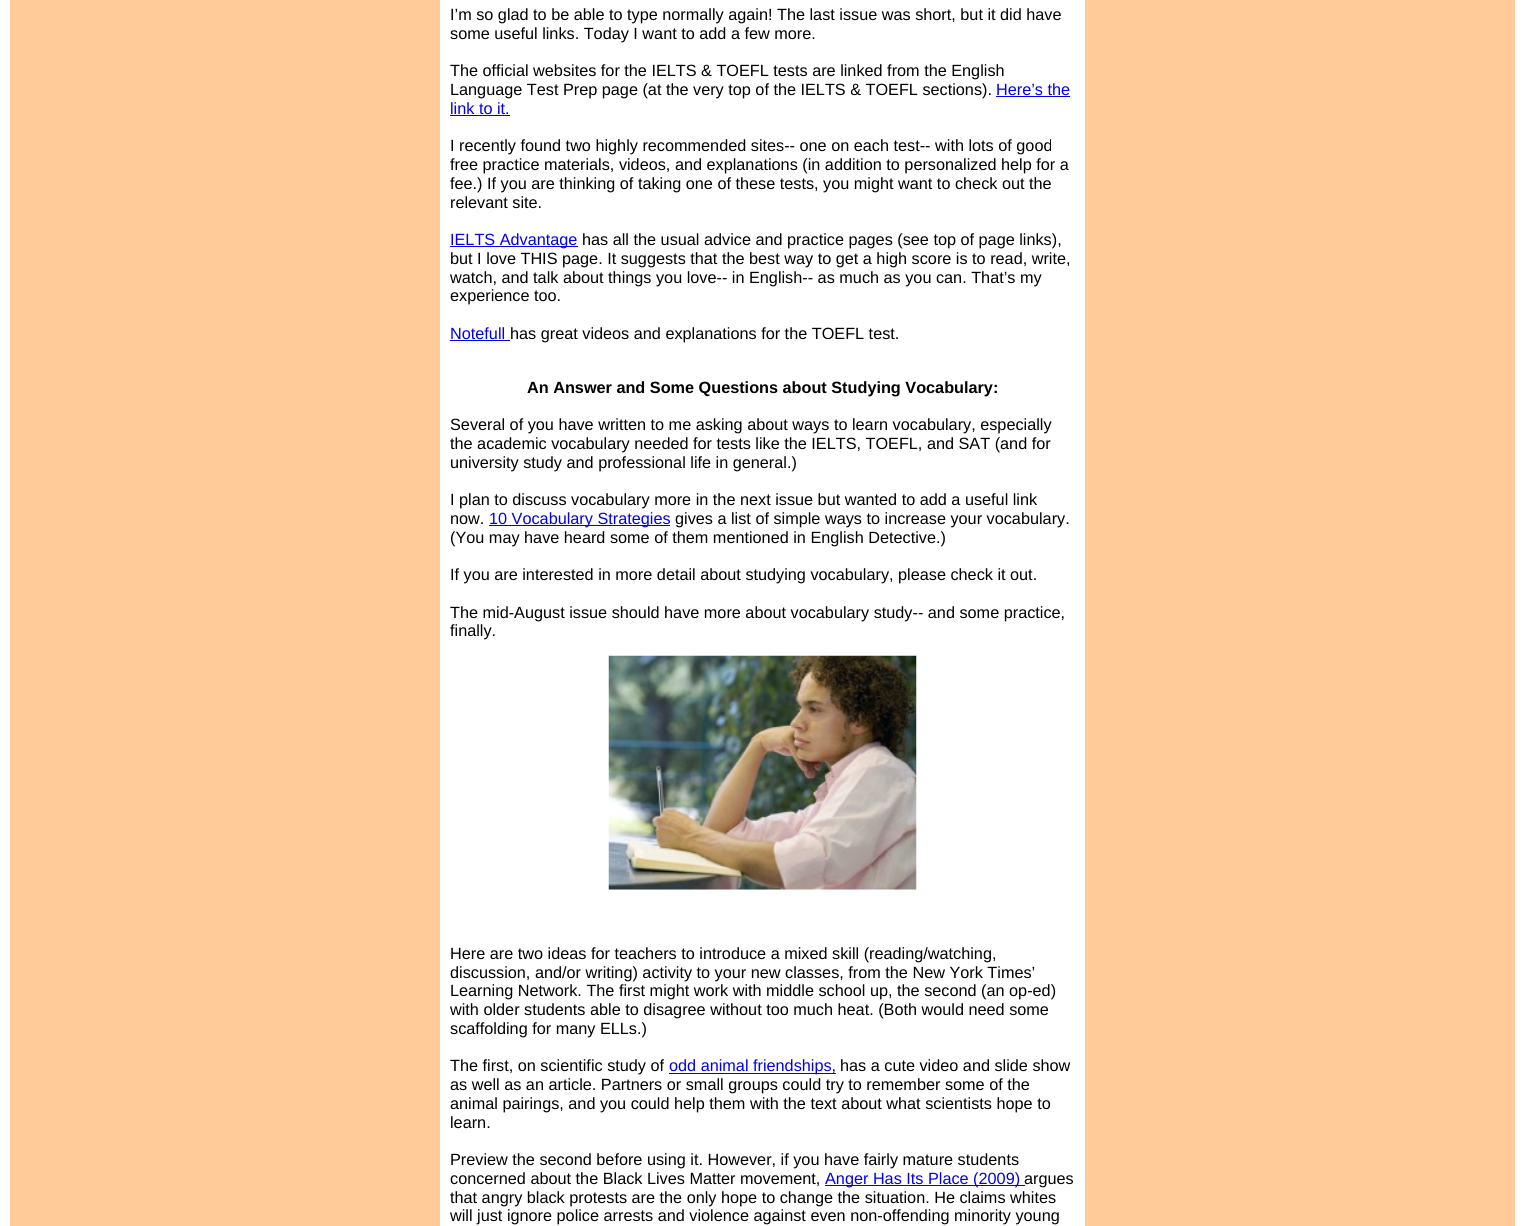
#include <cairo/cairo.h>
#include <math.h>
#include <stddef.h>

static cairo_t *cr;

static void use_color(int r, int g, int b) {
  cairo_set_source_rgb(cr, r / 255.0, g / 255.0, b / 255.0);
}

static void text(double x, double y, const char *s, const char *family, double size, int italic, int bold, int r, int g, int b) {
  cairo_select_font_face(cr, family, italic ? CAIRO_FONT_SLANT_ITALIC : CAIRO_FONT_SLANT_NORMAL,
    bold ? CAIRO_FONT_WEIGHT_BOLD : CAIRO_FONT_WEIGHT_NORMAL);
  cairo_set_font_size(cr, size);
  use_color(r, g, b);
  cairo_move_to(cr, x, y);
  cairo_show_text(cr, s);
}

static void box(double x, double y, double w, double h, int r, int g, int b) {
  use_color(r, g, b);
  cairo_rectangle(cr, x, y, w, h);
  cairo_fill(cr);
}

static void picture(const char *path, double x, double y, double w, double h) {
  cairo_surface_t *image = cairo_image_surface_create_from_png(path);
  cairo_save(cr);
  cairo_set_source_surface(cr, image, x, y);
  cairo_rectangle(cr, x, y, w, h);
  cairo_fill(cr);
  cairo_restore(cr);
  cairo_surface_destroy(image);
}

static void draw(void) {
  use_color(255, 255, 255);
  cairo_paint(cr);
  box(10, 0, 1505, 1226, 255, 204, 153);
  box(440, 0, 645, 1226, 255, 255, 255);
  box(996, 96, 74, 1, 0, 0, 238);
  box(450, 115, 60, 1, 0, 0, 238);
  box(450, 246, 128, 1, 0, 0, 238);
  box(450, 340, 60, 1, 0, 0, 238);
  box(489, 525, 181, 1, 0, 0, 238);
  picture("img_01.png", 608, 655, 309, 235);
  box(669, 1073, 167, 1, 0, 0, 238);
  box(825, 1185, 200, 1, 0, 0, 238);
  text(450, 20, "I’m so glad to be able to type normally again! The last issue was short, but it did have", "Liberation Sans", 16.25, 0, 0, 0, 0, 0);
  text(450, 39, "some useful links. Today I want to add a few more.", "Liberation Sans", 16.25, 0, 0, 0, 0, 0);
  text(450, 76, "The official websites for the IELTS & TOEFL tests are linked from the English", "Liberation Sans", 16.25, 0, 0, 0, 0, 0);
  text(450, 95, "Language Test Prep page (at the very top of the IELTS & TOEFL sections).", "Liberation Sans", 16.25, 0, 0, 0, 0, 0);
  text(996, 95, "Here’s the", "Liberation Sans", 16.25, 0, 0, 0, 0, 238);
  text(450, 114, "link to it.", "Liberation Sans", 16.25, 0, 0, 0, 0, 238);
  text(450, 151, "I recently found two highly recommended sites-- one on each test-- with lots of good", "Liberation Sans", 16.25, 0, 0, 0, 0, 0);
  text(450, 170, "free practice materials, videos, and explanations (in addition to personalized help for a", "Liberation Sans", 16.25, 0, 0, 0, 0, 0);
  text(450, 189, "fee.) If you are thinking of taking one of these tests, you might want to check out the", "Liberation Sans", 16.25, 0, 0, 0, 0, 0);
  text(450, 208, "relevant site.", "Liberation Sans", 16.25, 0, 0, 0, 0, 0);
  text(450, 245, "IELTS Advantage", "Liberation Sans", 16.25, 0, 0, 0, 0, 238);
  text(582, 245, "has all the usual advice and practice pages (see top of page links),", "Liberation Sans", 16.25, 0, 0, 0, 0, 0);
  text(450, 264, "but I love THIS page. It suggests that the best way to get a high score is to read, write,", "Liberation Sans", 16.25, 0, 0, 0, 0, 0);
  text(450, 283, "watch, and talk about things you love-- in English-- as much as you can. That’s my", "Liberation Sans", 16.25, 0, 0, 0, 0, 0);
  text(450, 301, "experience too.", "Liberation Sans", 16.25, 0, 0, 0, 0, 0);
  text(450, 339, "Notefull", "Liberation Sans", 16.25, 0, 0, 0, 0, 238);
  text(510, 339, "has great videos and explanations for the TOEFL test.", "Liberation Sans", 16.25, 0, 0, 0, 0, 0);
  text(527, 393, "An Answer and Some Questions about Studying Vocabulary:", "Liberation Sans", 16.25, 0, 1, 0, 0, 0);
  text(450, 430, "Several of you have written to me asking about ways to learn vocabulary, especially", "Liberation Sans", 16.25, 0, 0, 0, 0, 0);
  text(450, 449, "the academic vocabulary needed for tests like the IELTS, TOEFL, and SAT (and for", "Liberation Sans", 16.25, 0, 0, 0, 0, 0);
  text(450, 468, "university study and professional life in general.)", "Liberation Sans", 16.25, 0, 0, 0, 0, 0);
  text(450, 505, "I plan to discuss vocabulary more in the next issue but wanted to add a useful link", "Liberation Sans", 16.25, 0, 0, 0, 0, 0);
  text(450, 524, "now.", "Liberation Sans", 16.25, 0, 0, 0, 0, 0);
  text(489, 524, "10 Vocabulary Strategies", "Liberation Sans", 16.25, 0, 0, 0, 0, 238);
  text(675, 524, "gives a list of simple ways to increase your vocabulary.", "Liberation Sans", 16.25, 0, 0, 0, 0, 0);
  text(450, 543, "(You may have heard some of them mentioned in English Detective.)", "Liberation Sans", 16.25, 0, 0, 0, 0, 0);
  text(450, 580, "If you are interested in more detail about studying vocabulary, please check it out.", "Liberation Sans", 16.25, 0, 0, 0, 0, 0);
  text(450, 618, "The mid-August issue should have more about vocabulary study-- and some practice,", "Liberation Sans", 16.25, 0, 0, 0, 0, 0);
  text(450, 636, "finally.", "Liberation Sans", 16.25, 0, 0, 0, 0, 0);
  text(450, 959, "Here are two ideas for teachers to introduce a mixed skill (reading/watching,", "Liberation Sans", 16.25, 0, 0, 0, 0, 0);
  text(450, 978, "discussion, and/or writing) activity to your new classes, from the New York Times’", "Liberation Sans", 16.25, 0, 0, 0, 0, 0);
  text(450, 996, "Learning Network. The first might work with middle school up, the second (an op-ed)", "Liberation Sans", 16.25, 0, 0, 0, 0, 0);
  text(450, 1015, "with older students able to disagree without too much heat. (Both would need some", "Liberation Sans", 16.25, 0, 0, 0, 0, 0);
  text(450, 1034, "scaffolding for many ELLs.)", "Liberation Sans", 16.25, 0, 0, 0, 0, 0);
  text(450, 1071, "The first, on scientific study of", "Liberation Sans", 16.25, 0, 0, 0, 0, 0);
  text(669, 1071, "odd animal friendships,", "Liberation Sans", 16.25, 0, 0, 0, 0, 238);
  text(840, 1071, "has a cute video and slide show", "Liberation Sans", 16.25, 0, 0, 0, 0, 0);
  text(450, 1090, "as well as an article. Partners or small groups could try to remember some of the", "Liberation Sans", 16.25, 0, 0, 0, 0, 0);
  text(450, 1109, "animal pairings, and you could help them with the text about what scientists hope to", "Liberation Sans", 16.25, 0, 0, 0, 0, 0);
  text(450, 1128, "learn.", "Liberation Sans", 16.25, 0, 0, 0, 0, 0);
  text(450, 1165, "Preview the second before using it. However, if you have fairly mature students", "Liberation Sans", 16.25, 0, 0, 0, 0, 0);
  text(450, 1184, "concerned about the Black Lives Matter movement,", "Liberation Sans", 16.25, 0, 0, 0, 0, 0);
  text(825, 1184, "Anger Has Its Place (2009)", "Liberation Sans", 16.25, 0, 0, 0, 0, 238);
  text(1024, 1184, "argues", "Liberation Sans", 16.25, 0, 0, 0, 0, 0);
  text(450, 1203, "that angry black protests are the only hope to change the situation. He claims whites", "Liberation Sans", 16.25, 0, 0, 0, 0, 0);
  text(450, 1221, "will just ignore police arrests and violence against even non-offending minority young", "Liberation Sans", 16.25, 0, 0, 0, 0, 0);
}

int main(void) {
  cairo_surface_t *surface = cairo_image_surface_create(CAIRO_FORMAT_RGB24, 1525, 1226);
  cr = cairo_create(surface);
  cairo_font_options_t *options = cairo_font_options_create();
  cairo_font_options_set_hint_metrics(options, CAIRO_HINT_METRICS_OFF);
  cairo_font_options_set_hint_style(options, CAIRO_HINT_STYLE_NONE);
  cairo_set_font_options(cr, options);
  cairo_set_miter_limit(cr, 4);
  draw();
  cairo_surface_write_to_png(surface, "out.png");
  cairo_font_options_destroy(options);
  cairo_destroy(cr);
  cairo_surface_destroy(surface);
  return 0;
}
